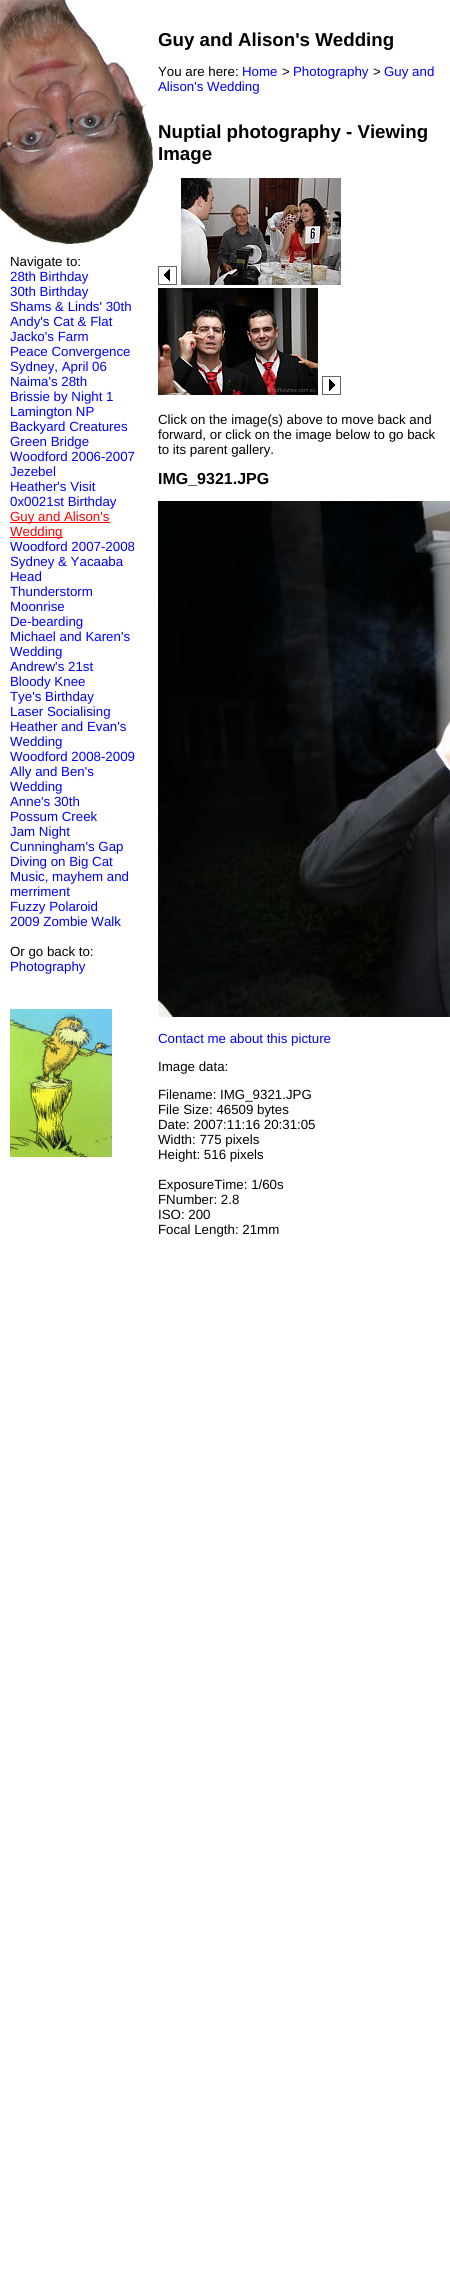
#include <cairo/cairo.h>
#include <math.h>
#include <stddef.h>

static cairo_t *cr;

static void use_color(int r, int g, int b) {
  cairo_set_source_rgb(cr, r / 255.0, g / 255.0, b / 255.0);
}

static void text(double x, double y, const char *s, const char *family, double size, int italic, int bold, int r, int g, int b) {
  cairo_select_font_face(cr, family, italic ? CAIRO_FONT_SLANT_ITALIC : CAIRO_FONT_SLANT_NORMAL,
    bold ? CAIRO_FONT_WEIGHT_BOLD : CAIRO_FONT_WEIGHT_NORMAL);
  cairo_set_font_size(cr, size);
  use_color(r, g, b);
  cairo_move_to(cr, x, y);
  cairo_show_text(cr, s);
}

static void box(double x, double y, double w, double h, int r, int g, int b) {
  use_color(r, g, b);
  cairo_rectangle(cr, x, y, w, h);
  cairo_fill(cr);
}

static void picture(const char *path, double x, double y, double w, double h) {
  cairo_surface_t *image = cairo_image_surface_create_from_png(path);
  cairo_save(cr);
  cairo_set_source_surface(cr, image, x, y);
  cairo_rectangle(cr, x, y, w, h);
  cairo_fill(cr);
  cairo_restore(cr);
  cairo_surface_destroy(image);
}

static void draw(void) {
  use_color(255, 255, 255);
  cairo_paint(cr);
  picture("img_01.png", 0, 0, 153, 244);
  box(10, 522, 100, 1, 255, 0, 0);
  box(10, 537, 53, 1, 255, 0, 0);
  picture("img_02.png", 10, 1009, 102, 148);
  picture("img_03.png", 158, 266, 19, 19);
  picture("img_04.png", 181, 178, 160, 107);
  picture("img_05.png", 158, 288, 160, 107);
  picture("img_06.png", 322, 376, 19, 19);
  picture("img_07.png", 158, 501, 292, 516);
  text(10, 266, "Navigate to:", "Liberation Sans", 13.3, 0, 0, 0, 0, 0);
  text(10, 281, "28th Birthday", "Liberation Sans", 13.3, 0, 0, 0, 0, 255);
  text(10, 296, "30th Birthday", "Liberation Sans", 13.3, 0, 0, 0, 0, 255);
  text(10, 311, "Shams & Linds' 30th", "Liberation Sans", 13.3, 0, 0, 0, 0, 255);
  text(10, 326, "Andy's Cat & Flat", "Liberation Sans", 13.3, 0, 0, 0, 0, 255);
  text(10, 341, "Jacko's Farm", "Liberation Sans", 13.3, 0, 0, 0, 0, 255);
  text(10, 356, "Peace Convergence", "Liberation Sans", 13.3, 0, 0, 0, 0, 255);
  text(10, 371, "Sydney, April 06", "Liberation Sans", 13.3, 0, 0, 0, 0, 255);
  text(10, 386, "Naima's 28th", "Liberation Sans", 13.3, 0, 0, 0, 0, 255);
  text(10, 401, "Brissie by Night 1", "Liberation Sans", 13.3, 0, 0, 0, 0, 255);
  text(10, 416, "Lamington NP", "Liberation Sans", 13.3, 0, 0, 0, 0, 255);
  text(10, 431, "Backyard Creatures", "Liberation Sans", 13.3, 0, 0, 0, 0, 255);
  text(10, 446, "Green Bridge", "Liberation Sans", 13.3, 0, 0, 0, 0, 255);
  text(10, 461, "Woodford 2006-2007", "Liberation Sans", 13.3, 0, 0, 0, 0, 255);
  text(10, 476, "Jezebel", "Liberation Sans", 13.3, 0, 0, 0, 0, 255);
  text(10, 491, "Heather's Visit", "Liberation Sans", 13.3, 0, 0, 0, 0, 255);
  text(10, 506, "0x0021st Birthday", "Liberation Sans", 13.3, 0, 0, 0, 0, 255);
  text(10, 521, "Guy and Alison's", "Liberation Sans", 13.3, 0, 0, 255, 0, 0);
  text(10, 536, "Wedding", "Liberation Sans", 13.3, 0, 0, 255, 0, 0);
  text(10, 551, "Woodford 2007-2008", "Liberation Sans", 13.3, 0, 0, 0, 0, 255);
  text(10, 566, "Sydney & Yacaaba", "Liberation Sans", 13.3, 0, 0, 0, 0, 255);
  text(10, 581, "Head", "Liberation Sans", 13.3, 0, 0, 0, 0, 255);
  text(10, 596, "Thunderstorm", "Liberation Sans", 13.3, 0, 0, 0, 0, 255);
  text(10, 611, "Moonrise", "Liberation Sans", 13.3, 0, 0, 0, 0, 255);
  text(10, 626, "De-bearding", "Liberation Sans", 13.3, 0, 0, 0, 0, 255);
  text(10, 641, "Michael and Karen's", "Liberation Sans", 13.3, 0, 0, 0, 0, 255);
  text(10, 656, "Wedding", "Liberation Sans", 13.3, 0, 0, 0, 0, 255);
  text(10, 671, "Andrew's 21st", "Liberation Sans", 13.3, 0, 0, 0, 0, 255);
  text(10, 686, "Bloody Knee", "Liberation Sans", 13.3, 0, 0, 0, 0, 255);
  text(10, 701, "Tye's Birthday", "Liberation Sans", 13.3, 0, 0, 0, 0, 255);
  text(10, 716, "Laser Socialising", "Liberation Sans", 13.3, 0, 0, 0, 0, 255);
  text(10, 731, "Heather and Evan's", "Liberation Sans", 13.3, 0, 0, 0, 0, 255);
  text(10, 746, "Wedding", "Liberation Sans", 13.3, 0, 0, 0, 0, 255);
  text(10, 761, "Woodford 2008-2009", "Liberation Sans", 13.3, 0, 0, 0, 0, 255);
  text(10, 776, "Ally and Ben's", "Liberation Sans", 13.3, 0, 0, 0, 0, 255);
  text(10, 791, "Wedding", "Liberation Sans", 13.3, 0, 0, 0, 0, 255);
  text(10, 806, "Anne's 30th", "Liberation Sans", 13.3, 0, 0, 0, 0, 255);
  text(10, 821, "Possum Creek", "Liberation Sans", 13.3, 0, 0, 0, 0, 255);
  text(10, 836, "Jam Night", "Liberation Sans", 13.3, 0, 0, 0, 0, 255);
  text(10, 851, "Cunningham's Gap", "Liberation Sans", 13.3, 0, 0, 0, 0, 255);
  text(10, 866, "Diving on Big Cat", "Liberation Sans", 13.3, 0, 0, 0, 0, 255);
  text(10, 881, "Music, mayhem and", "Liberation Sans", 13.3, 0, 0, 0, 0, 255);
  text(10, 896, "merriment", "Liberation Sans", 13.3, 0, 0, 0, 0, 255);
  text(10, 911, "Fuzzy Polaroid", "Liberation Sans", 13.3, 0, 0, 0, 0, 255);
  text(10, 926, "2009 Zombie Walk", "Liberation Sans", 13.3, 0, 0, 0, 0, 255);
  text(10, 956, "Or go back to:", "Liberation Sans", 13.3, 0, 0, 0, 0, 0);
  text(10, 971, "Photography", "Liberation Sans", 13.3, 0, 0, 0, 0, 255);
  text(158, 46, "Guy and Alison's Wedding", "Liberation Sans", 18.7, 0, 1, 0, 0, 0);
  text(158, 76, "You are here:", "Liberation Sans", 13.3, 0, 0, 0, 0, 0);
  text(242, 76, "Home", "Liberation Sans", 13.3, 0, 0, 0, 0, 255);
  text(282, 76, ">", "Liberation Sans", 13.3, 0, 0, 0, 0, 0);
  text(293, 76, "Photography", "Liberation Sans", 13.3, 0, 0, 0, 0, 255);
  text(373, 76, ">", "Liberation Sans", 13.3, 0, 0, 0, 0, 0);
  text(384, 76, "Guy and", "Liberation Sans", 13.3, 0, 0, 0, 0, 255);
  text(158, 91, "Alison's Wedding", "Liberation Sans", 13.3, 0, 0, 0, 0, 255);
  text(158, 138, "Nuptial photography - Viewing", "Liberation Sans", 18.7, 0, 1, 0, 0, 0);
  text(158, 160, "Image", "Liberation Sans", 18.7, 0, 1, 0, 0, 0);
  text(158, 424, "Click on the image(s) above to move back and", "Liberation Sans", 13.3, 0, 0, 0, 0, 0);
  text(158, 439, "forward, or click on the image below to go back", "Liberation Sans", 13.3, 0, 0, 0, 0, 0);
  text(158, 454, "to its parent gallery.", "Liberation Sans", 13.3, 0, 0, 0, 0, 0);
  text(158, 484, "IMG_9321.JPG", "Liberation Sans", 16, 0, 1, 0, 0, 0);
  text(158, 1043, "Contact me about this picture", "Liberation Sans", 13.3, 0, 0, 0, 0, 255);
  text(158, 1071, "Image data:", "Liberation Sans", 13.3, 0, 0, 0, 0, 0);
  text(158, 1099, "Filename: IMG_9321.JPG", "Liberation Sans", 13.3, 0, 0, 0, 0, 0);
  text(158, 1114, "File Size: 46509 bytes", "Liberation Sans", 13.3, 0, 0, 0, 0, 0);
  text(158, 1129, "Date: 2007:11:16 20:31:05", "Liberation Sans", 13.3, 0, 0, 0, 0, 0);
  text(158, 1144, "Width: 775 pixels", "Liberation Sans", 13.3, 0, 0, 0, 0, 0);
  text(158, 1159, "Height: 516 pixels", "Liberation Sans", 13.3, 0, 0, 0, 0, 0);
  text(158, 1189, "ExposureTime: 1/60s", "Liberation Sans", 13.3, 0, 0, 0, 0, 0);
  text(158, 1204, "FNumber: 2.8", "Liberation Sans", 13.3, 0, 0, 0, 0, 0);
  text(158, 1219, "ISO: 200", "Liberation Sans", 13.3, 0, 0, 0, 0, 0);
  text(158, 1234, "Focal Length: 21mm", "Liberation Sans", 13.3, 0, 0, 0, 0, 0);
}

int main(void) {
  cairo_surface_t *surface = cairo_image_surface_create(CAIRO_FORMAT_RGB24, 450, 2287);
  cr = cairo_create(surface);
  cairo_font_options_t *options = cairo_font_options_create();
  cairo_font_options_set_hint_metrics(options, CAIRO_HINT_METRICS_OFF);
  cairo_font_options_set_hint_style(options, CAIRO_HINT_STYLE_NONE);
  cairo_set_font_options(cr, options);
  cairo_set_miter_limit(cr, 4);
  draw();
  cairo_surface_write_to_png(surface, "out.png");
  cairo_font_options_destroy(options);
  cairo_destroy(cr);
  cairo_surface_destroy(surface);
  return 0;
}
